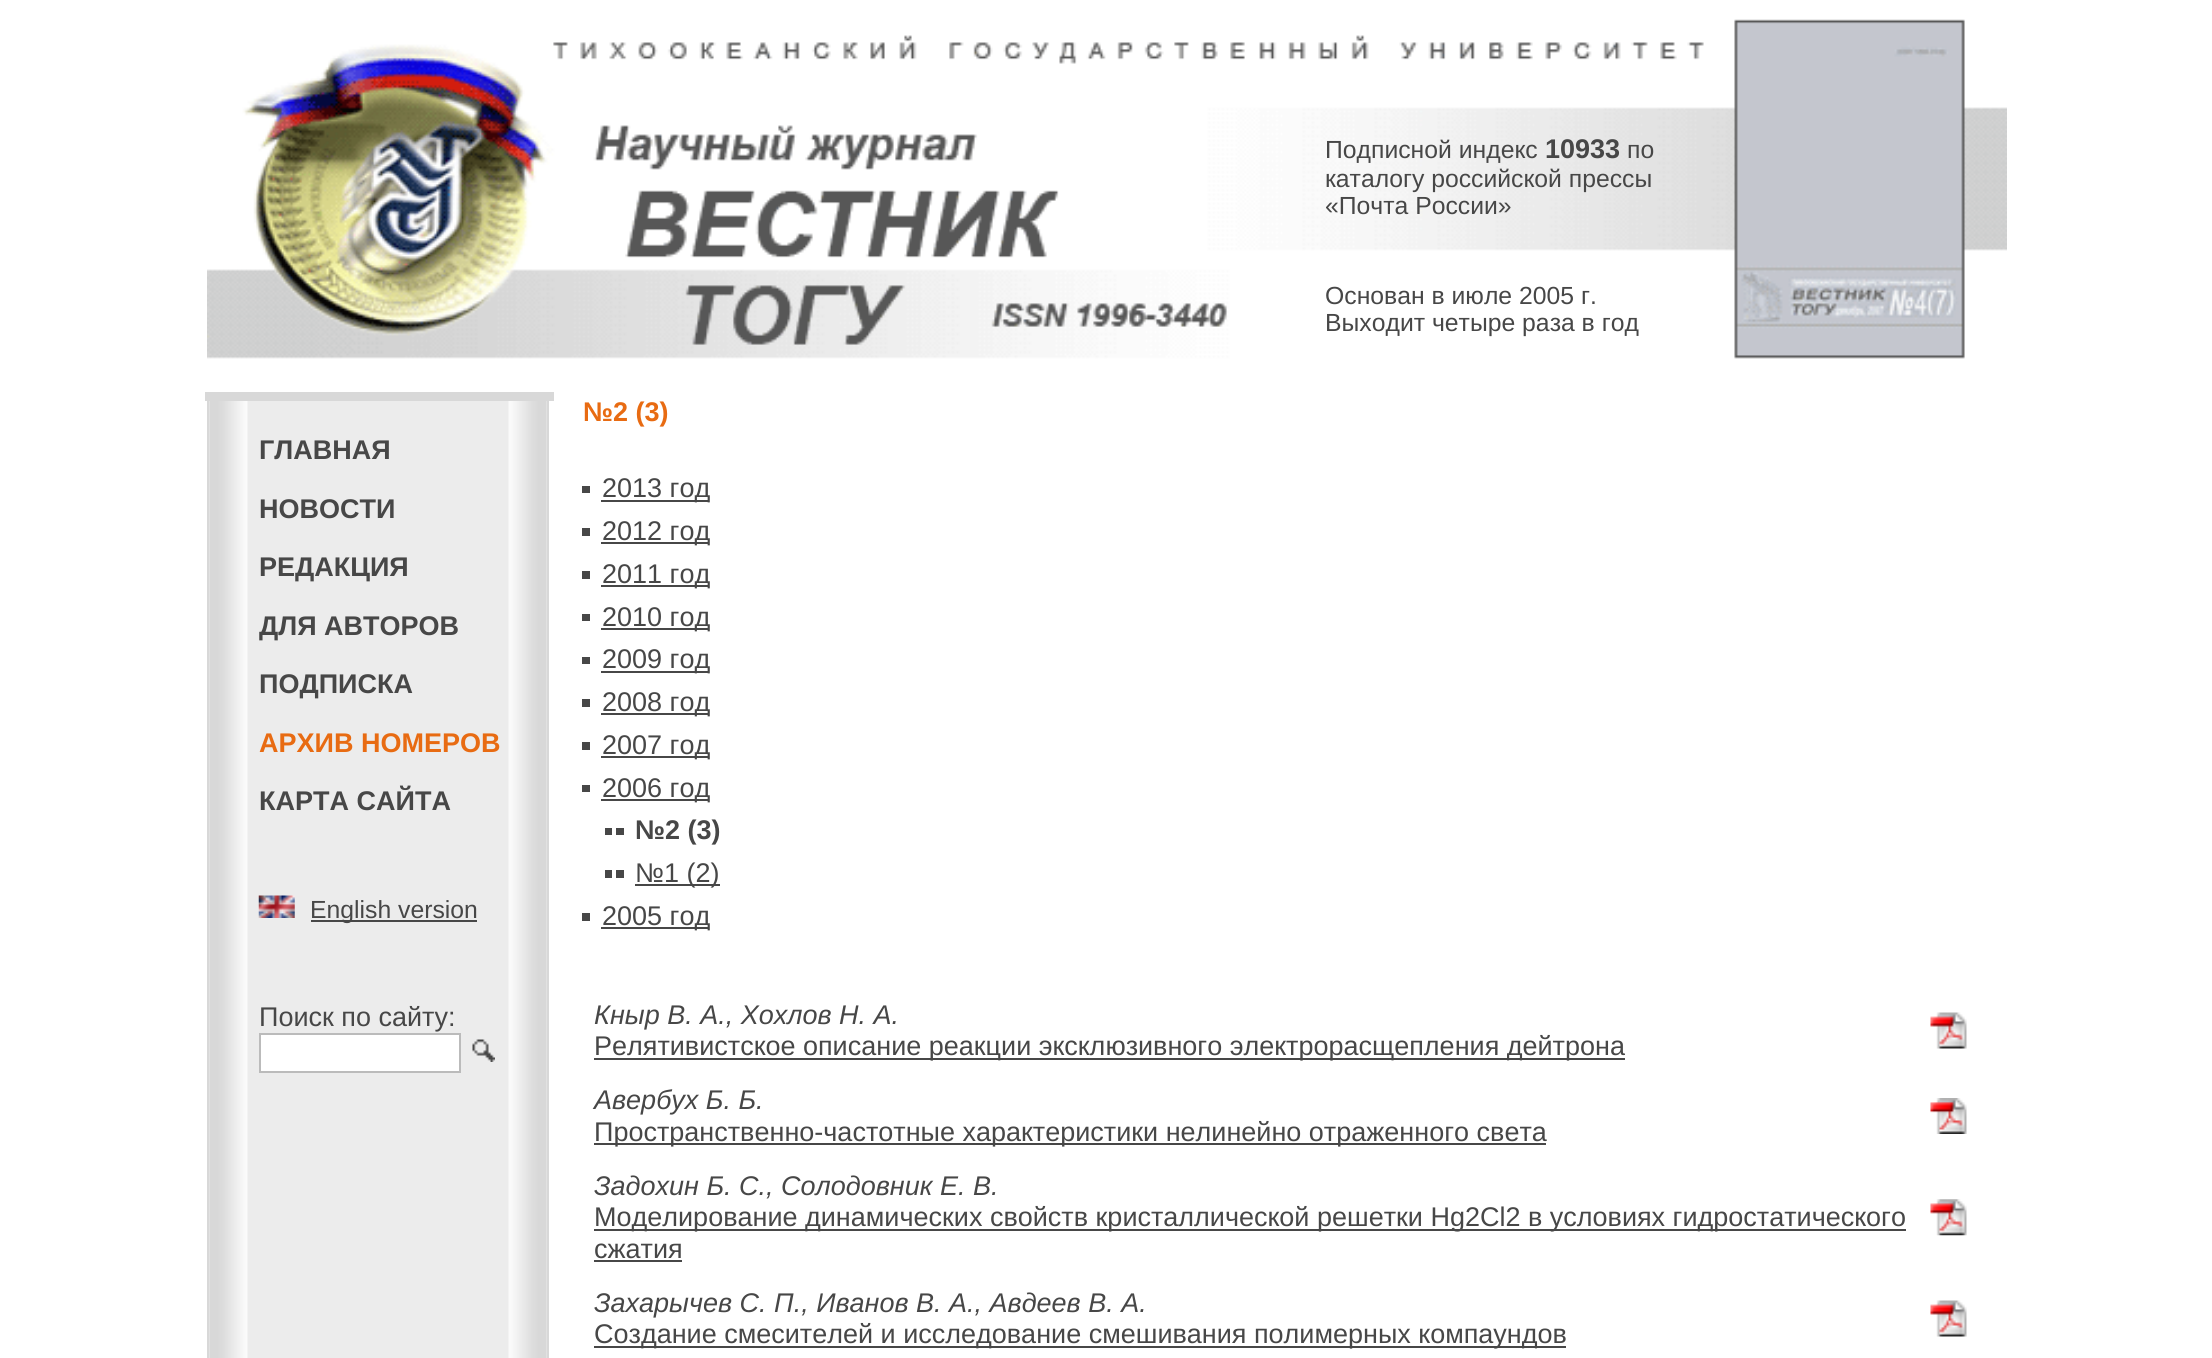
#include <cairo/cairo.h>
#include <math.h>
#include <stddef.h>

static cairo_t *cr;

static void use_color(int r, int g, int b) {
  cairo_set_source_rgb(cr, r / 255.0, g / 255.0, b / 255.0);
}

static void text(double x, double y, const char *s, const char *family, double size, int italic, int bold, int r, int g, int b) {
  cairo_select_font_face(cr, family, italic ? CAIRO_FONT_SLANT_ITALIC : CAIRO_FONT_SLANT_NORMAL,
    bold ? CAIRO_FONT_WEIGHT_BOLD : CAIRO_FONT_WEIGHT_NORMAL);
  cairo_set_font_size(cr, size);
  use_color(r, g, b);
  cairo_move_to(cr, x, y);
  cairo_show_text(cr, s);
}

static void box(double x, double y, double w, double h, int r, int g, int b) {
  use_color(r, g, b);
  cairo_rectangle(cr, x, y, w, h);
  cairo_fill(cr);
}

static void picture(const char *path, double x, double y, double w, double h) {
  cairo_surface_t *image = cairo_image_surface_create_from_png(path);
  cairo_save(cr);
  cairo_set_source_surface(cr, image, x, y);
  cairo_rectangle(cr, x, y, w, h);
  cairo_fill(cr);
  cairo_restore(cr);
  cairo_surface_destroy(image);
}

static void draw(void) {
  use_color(255, 255, 255);
  cairo_paint(cr);
  picture("img_01.png", 207, 19, 1800, 340);
  picture("img_02.png", 209, 401, 338, 957);
  box(547, 396, 2, 962, 216, 216, 216);
  box(207, 396, 2, 962, 216, 216, 216);
  box(205, 392, 349, 9, 216, 216, 216);
  picture("img_03.png", 258, 895, 37, 23);
  box(311, 920, 166, 2, 71, 71, 71);
  use_color(255, 255, 255);
  cairo_rectangle(cr, 260, 1034, 200, 38);
  cairo_fill_preserve(cr);
  use_color(187, 187, 187);
  cairo_stroke(cr);
  picture("img_04.png", 472, 1039, 23, 23);
  box(582, 486, 8, 7, 71, 71, 71);
  box(601, 500, 108, 2, 71, 71, 71);
  box(582, 528, 8, 8, 71, 71, 71);
  box(601, 542, 108, 2, 71, 71, 71);
  box(582, 571, 8, 8, 71, 71, 71);
  box(601, 585, 108, 2, 71, 71, 71);
  box(582, 614, 8, 7, 71, 71, 71);
  box(601, 628, 108, 2, 71, 71, 71);
  box(582, 657, 8, 7, 71, 71, 71);
  box(601, 671, 108, 2, 71, 71, 71);
  box(582, 699, 8, 8, 71, 71, 71);
  box(601, 713, 108, 2, 71, 71, 71);
  box(582, 742, 8, 8, 71, 71, 71);
  box(601, 756, 108, 2, 71, 71, 71);
  box(582, 785, 8, 7, 71, 71, 71);
  box(601, 799, 108, 2, 71, 71, 71);
  box(605, 828, 7, 7, 71, 71, 71);
  box(616, 828, 8, 7, 71, 71, 71);
  box(605, 870, 7, 8, 71, 71, 71);
  box(616, 870, 8, 8, 71, 71, 71);
  box(635, 884, 85, 2, 71, 71, 71);
  box(582, 913, 8, 8, 71, 71, 71);
  box(601, 927, 108, 2, 71, 71, 71);
  box(594, 1058, 1031, 2, 71, 71, 71);
  picture("img_05.png", 1930, 1012, 37, 37);
  box(594, 1143, 952, 2, 71, 71, 71);
  picture("img_06.png", 1930, 1098, 37, 36);
  box(594, 1229, 1312, 2, 71, 71, 71);
  box(594, 1260, 88, 2, 71, 71, 71);
  picture("img_07.png", 1930, 1199, 37, 37);
  box(594, 1346, 972, 2, 71, 71, 71);
  picture("img_05.png", 1930, 1300, 37, 37);
  text(1325, 158, "Подписной индекс", "Liberation Sans", 24.75, 0, 0, 71, 71, 71);
  text(1545, 158, "10933", "Liberation Sans", 27, 0, 1, 71, 71, 71);
  text(1627, 158, "по", "Liberation Sans", 24.75, 0, 0, 71, 71, 71);
  text(1325, 187, "каталогу российской прессы", "Liberation Sans", 24.75, 0, 0, 71, 71, 71);
  text(1325, 214, "«Почта России»", "Liberation Sans", 24.75, 0, 0, 71, 71, 71);
  text(1325, 304, "Основан в июле 2005 г.", "Liberation Sans", 24.75, 0, 0, 71, 71, 71);
  text(1325, 331, "Выходит четыре раза в год", "Liberation Sans", 24.75, 0, 0, 71, 71, 71);
  text(259, 459, "ГЛАВНАЯ", "Liberation Sans", 27, 0, 1, 71, 71, 71);
  text(259, 518, "НОВОСТИ", "Liberation Sans", 27, 0, 1, 71, 71, 71);
  text(259, 576, "РЕДАКЦИЯ", "Liberation Sans", 27, 0, 1, 71, 71, 71);
  text(259, 635, "ДЛЯ АВТОРОВ", "Liberation Sans", 27, 0, 1, 71, 71, 71);
  text(259, 693, "ПОДПИСКА", "Liberation Sans", 27, 0, 1, 71, 71, 71);
  text(259, 752, "АРХИВ НОМЕРОВ", "Liberation Sans", 27, 0, 1, 232, 107, 18);
  text(259, 810, "КАРТА САЙТА", "Liberation Sans", 27, 0, 1, 71, 71, 71);
  text(310, 918, "English version", "Liberation Sans", 24.75, 0, 0, 71, 71, 71);
  text(259, 1026, "Поиск по сайту:", "Liberation Sans", 27, 0, 0, 71, 71, 71);
  text(583, 421, "№2 (3)", "Liberation Sans", 27, 0, 1, 232, 107, 18);
  text(602, 497, "2013 год", "Liberation Sans", 27, 0, 0, 71, 71, 71);
  text(602, 540, "2012 год", "Liberation Sans", 27, 0, 0, 71, 71, 71);
  text(602, 583, "2011 год", "Liberation Sans", 27, 0, 0, 71, 71, 71);
  text(602, 626, "2010 год", "Liberation Sans", 27, 0, 0, 71, 71, 71);
  text(602, 668, "2009 год", "Liberation Sans", 27, 0, 0, 71, 71, 71);
  text(602, 711, "2008 год", "Liberation Sans", 27, 0, 0, 71, 71, 71);
  text(602, 754, "2007 год", "Liberation Sans", 27, 0, 0, 71, 71, 71);
  text(602, 797, "2006 год", "Liberation Sans", 27, 0, 0, 71, 71, 71);
  text(635, 839, "№2 (3)", "Liberation Sans", 27, 0, 1, 71, 71, 71);
  text(635, 882, "№1 (2)", "Liberation Sans", 27, 0, 0, 71, 71, 71);
  text(602, 925, "2005 год", "Liberation Sans", 27, 0, 0, 71, 71, 71);
  text(594, 1024, "Кныр В. А., Хохлов Н. А.", "Liberation Sans", 27, 1, 0, 71, 71, 71);
  text(594, 1055, "Релятивистское описание реакции эксклюзивного электрорасщепления дейтрона", "Liberation Sans", 27, 0, 0, 71, 71, 71);
  text(594, 1109, "Авербух Б. Б.", "Liberation Sans", 27, 1, 0, 71, 71, 71);
  text(594, 1141, "Пространственно-частотные характеристики нелинейно отраженного света", "Liberation Sans", 27, 0, 0, 71, 71, 71);
  text(594, 1195, "Задохин Б. С., Солодовник Е. В.", "Liberation Sans", 27, 1, 0, 71, 71, 71);
  text(594, 1226, "Моделирование динамических свойств кристаллической решетки Hg2Сl2 в условиях гидростатического", "Liberation Sans", 27, 0, 0, 71, 71, 71);
  text(594, 1258, "сжатия", "Liberation Sans", 27, 0, 0, 71, 71, 71);
  text(594, 1312, "Захарычев С. П., Иванов В. А., Авдеев В. А.", "Liberation Sans", 27, 1, 0, 71, 71, 71);
  text(594, 1343, "Создание смесителей и исследование смешивания полимерных компаундов", "Liberation Sans", 27, 0, 0, 71, 71, 71);
}

int main(void) {
  cairo_surface_t *surface = cairo_image_surface_create(CAIRO_FORMAT_RGB24, 2212, 1358);
  cr = cairo_create(surface);
  cairo_font_options_t *options = cairo_font_options_create();
  cairo_font_options_set_hint_metrics(options, CAIRO_HINT_METRICS_OFF);
  cairo_font_options_set_hint_style(options, CAIRO_HINT_STYLE_NONE);
  cairo_set_font_options(cr, options);
  cairo_set_miter_limit(cr, 4);
  draw();
  cairo_surface_write_to_png(surface, "out.png");
  cairo_font_options_destroy(options);
  cairo_destroy(cr);
  cairo_surface_destroy(surface);
  return 0;
}
